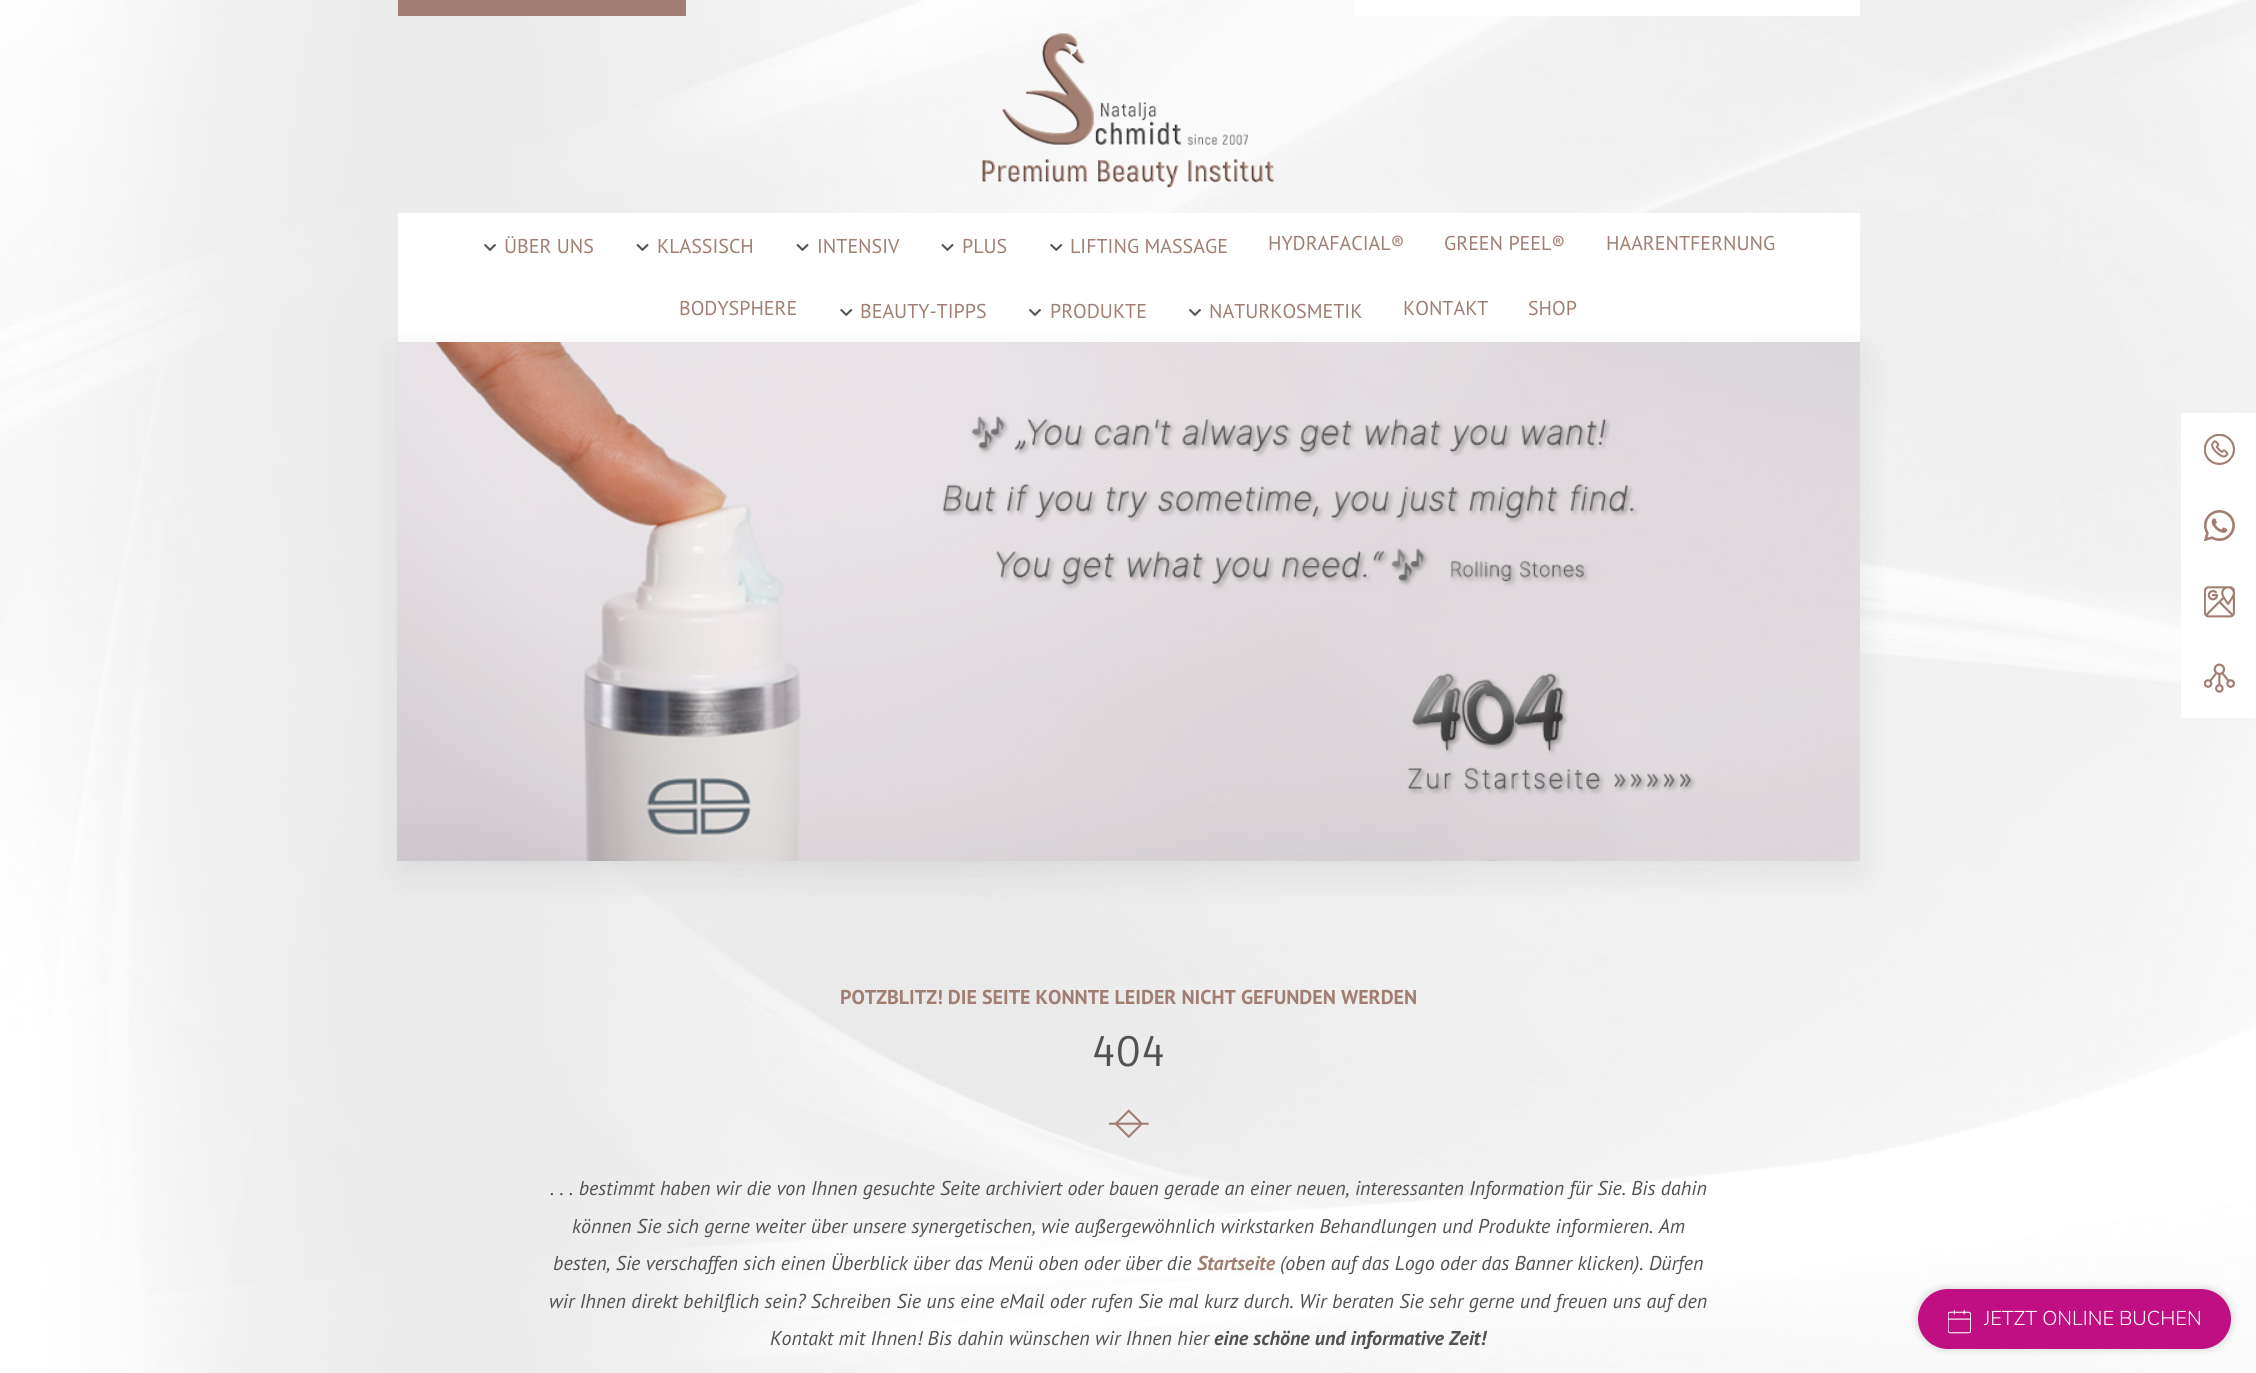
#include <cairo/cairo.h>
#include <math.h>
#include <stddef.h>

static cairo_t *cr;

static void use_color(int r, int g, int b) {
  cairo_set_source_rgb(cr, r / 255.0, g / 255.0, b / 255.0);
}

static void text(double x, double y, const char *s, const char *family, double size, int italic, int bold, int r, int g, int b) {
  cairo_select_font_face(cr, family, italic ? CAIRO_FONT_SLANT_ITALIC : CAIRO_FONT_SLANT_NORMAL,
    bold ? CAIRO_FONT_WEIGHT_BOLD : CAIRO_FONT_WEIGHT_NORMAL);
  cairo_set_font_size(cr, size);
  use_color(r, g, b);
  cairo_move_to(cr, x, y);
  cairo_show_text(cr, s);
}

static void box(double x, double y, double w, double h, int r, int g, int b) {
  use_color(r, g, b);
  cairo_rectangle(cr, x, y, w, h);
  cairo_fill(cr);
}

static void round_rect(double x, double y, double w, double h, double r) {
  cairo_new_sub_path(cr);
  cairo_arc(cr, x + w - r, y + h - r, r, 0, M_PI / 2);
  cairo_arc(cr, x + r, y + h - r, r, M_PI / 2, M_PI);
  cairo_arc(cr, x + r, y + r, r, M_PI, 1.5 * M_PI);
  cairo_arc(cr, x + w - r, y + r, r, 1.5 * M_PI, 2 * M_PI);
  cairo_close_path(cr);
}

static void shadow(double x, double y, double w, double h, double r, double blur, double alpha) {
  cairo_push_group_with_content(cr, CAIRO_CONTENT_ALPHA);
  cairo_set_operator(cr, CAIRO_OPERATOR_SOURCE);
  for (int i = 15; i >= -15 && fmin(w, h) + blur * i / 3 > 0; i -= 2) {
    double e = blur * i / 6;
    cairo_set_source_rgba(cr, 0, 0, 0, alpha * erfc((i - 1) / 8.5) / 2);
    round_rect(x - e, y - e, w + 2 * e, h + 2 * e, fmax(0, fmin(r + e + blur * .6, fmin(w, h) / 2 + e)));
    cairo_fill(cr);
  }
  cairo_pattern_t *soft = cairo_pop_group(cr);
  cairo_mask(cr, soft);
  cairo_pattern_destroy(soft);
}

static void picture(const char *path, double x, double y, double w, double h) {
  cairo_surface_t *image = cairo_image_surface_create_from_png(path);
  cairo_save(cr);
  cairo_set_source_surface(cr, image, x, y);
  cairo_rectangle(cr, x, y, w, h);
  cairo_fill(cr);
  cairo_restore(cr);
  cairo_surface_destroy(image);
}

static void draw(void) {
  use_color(255, 255, 255);
  cairo_paint(cr);
  picture("img_01.png", 0, 0, 2256, 1373);
  box(398, 0, 288, 16, 162, 126, 114);
  box(1355, 0, 505, 16, 255, 255, 255);
  picture("img_02.png", 982, 33, 292, 155);
  box(398, 213, 1462, 129, 255, 255, 255);
  picture("img_03.png", 484, 244, 12, 7);
  picture("img_04.png", 636, 244, 13, 7);
  picture("img_04.png", 796, 244, 13, 7);
  picture("img_04.png", 941, 244, 13, 7);
  picture("img_05.png", 1050, 244, 13, 7);
  picture("img_05.png", 840, 309, 13, 7);
  picture("img_03.png", 1029, 309, 12, 7);
  picture("img_03.png", 1189, 309, 12, 7);
  use_color(0, 0, 0);
  shadow(398, 355, 1462, 519, 0, 19, 0.08);
  picture("img_06.png", 397, 342, 1463, 519);
  picture("img_07.png", 1109, 1109, 40, 29);
  box(2181, 413, 75, 305, 255, 255, 255);
  picture("img_08.png", 2204, 434, 31, 31);
  picture("img_09.png", 2204, 510, 31, 31);
  picture("img_10.png", 2204, 586, 31, 32);
  picture("img_11.png", 2204, 663, 31, 30);
  use_color(0, 0, 0);
  shadow(1915, 1286, 319, 65, 32.5, 3, 0.1);
  use_color(192, 15, 130);
  round_rect(1918, 1289, 313, 60, 30);
  cairo_fill(cr);
  picture("img_12.png", 1948, 1310, 23, 24);
  text(504, 253, "ÜBER UNS", "PT Sans", 20, 0, 0, 162, 126, 114);
  text(657, 253, "KLASSISCH", "PT Sans", 20, 0, 0, 162, 126, 114);
  text(817, 253, "INTENSIV", "PT Sans", 20, 0, 0, 162, 126, 114);
  text(962, 253, "PLUS", "PT Sans", 20, 0, 0, 162, 126, 114);
  text(1070, 253, "LIFTING MASSAGE", "PT Sans", 20, 0, 0, 162, 126, 114);
  text(1268, 250, "HYDRAFACIAL®", "PT Sans", 20, 0, 0, 162, 126, 114);
  text(1444, 250, "GREEN PEEL®", "PT Sans", 20, 0, 0, 162, 126, 114);
  text(1606, 250, "HAARENTFERNUNG", "PT Sans", 20, 0, 0, 162, 126, 114);
  text(679, 315, "BODYSPHERE", "PT Sans", 20, 0, 0, 162, 126, 114);
  text(860, 318, "BEAUTY-TIPPS", "PT Sans", 20, 0, 0, 162, 126, 114);
  text(1050, 318, "PRODUKTE", "PT Sans", 20, 0, 0, 162, 126, 114);
  text(1209, 318, "NATURKOSMETIK", "PT Sans", 20, 0, 0, 162, 126, 114);
  text(1403, 315, "KONTAKT", "PT Sans", 20, 0, 0, 162, 126, 114);
  text(1528, 315, "SHOP", "PT Sans", 20, 0, 0, 162, 126, 114);
  text(840, 1004, "POTZBLITZ! DIE SEITE KONNTE LEIDER NICHT GEFUNDEN WERDEN", "PT Sans", 20, 0, 1, 162, 126, 114);
  text(1091, 1066, "404", "Ruluko", 45, 0, 0, 82, 82, 82);
  text(550, 1195, ". . . bestimmt haben wir die von Ihnen gesuchte Seite archiviert oder bauen gerade an einer neuen, interessanten Information für Sie. Bis dahin", "PT Sans", 20, 1, 0, 82, 82, 82);
  text(572, 1233, "können Sie sich gerne weiter über unsere synergetischen, wie außergewöhnlich wirkstarken Behandlungen und Produkte informieren. Am", "PT Sans", 20, 1, 0, 82, 82, 82);
  text(553, 1270, "besten, Sie verschaffen sich einen Überblick über das Menü oben oder über die", "PT Sans", 20, 1, 0, 82, 82, 82);
  text(1197, 1270, "Startseite", "PT Sans", 20, 1, 1, 162, 126, 114);
  text(1280, 1270, "(oben auf das Logo oder das Banner klicken). Dürfen", "PT Sans", 20, 1, 0, 82, 82, 82);
  text(549, 1308, "wir Ihnen direkt behilflich sein? Schreiben Sie uns eine eMail oder rufen Sie mal kurz durch. Wir beraten Sie sehr gerne und freuen uns auf den", "PT Sans", 20, 1, 0, 82, 82, 82);
  text(770, 1345, "Kontakt mit Ihnen! Bis dahin wünschen wir Ihnen hier", "PT Sans", 20, 1, 0, 82, 82, 82);
  text(1214, 1345, "eine schöne und informative Zeit!", "PT Sans", 20, 1, 1, 82, 82, 82);
  text(1984, 1325, "JETZT ONLINE BUCHEN", "Nunito Light", 20, 0, 0, 255, 255, 255);
}

int main(void) {
  cairo_surface_t *surface = cairo_image_surface_create(CAIRO_FORMAT_RGB24, 2256, 1373);
  cr = cairo_create(surface);
  cairo_font_options_t *options = cairo_font_options_create();
  cairo_font_options_set_hint_metrics(options, CAIRO_HINT_METRICS_OFF);
  cairo_font_options_set_hint_style(options, CAIRO_HINT_STYLE_NONE);
  cairo_set_font_options(cr, options);
  cairo_set_miter_limit(cr, 4);
  draw();
  cairo_surface_write_to_png(surface, "out.png");
  cairo_font_options_destroy(options);
  cairo_destroy(cr);
  cairo_surface_destroy(surface);
  return 0;
}
